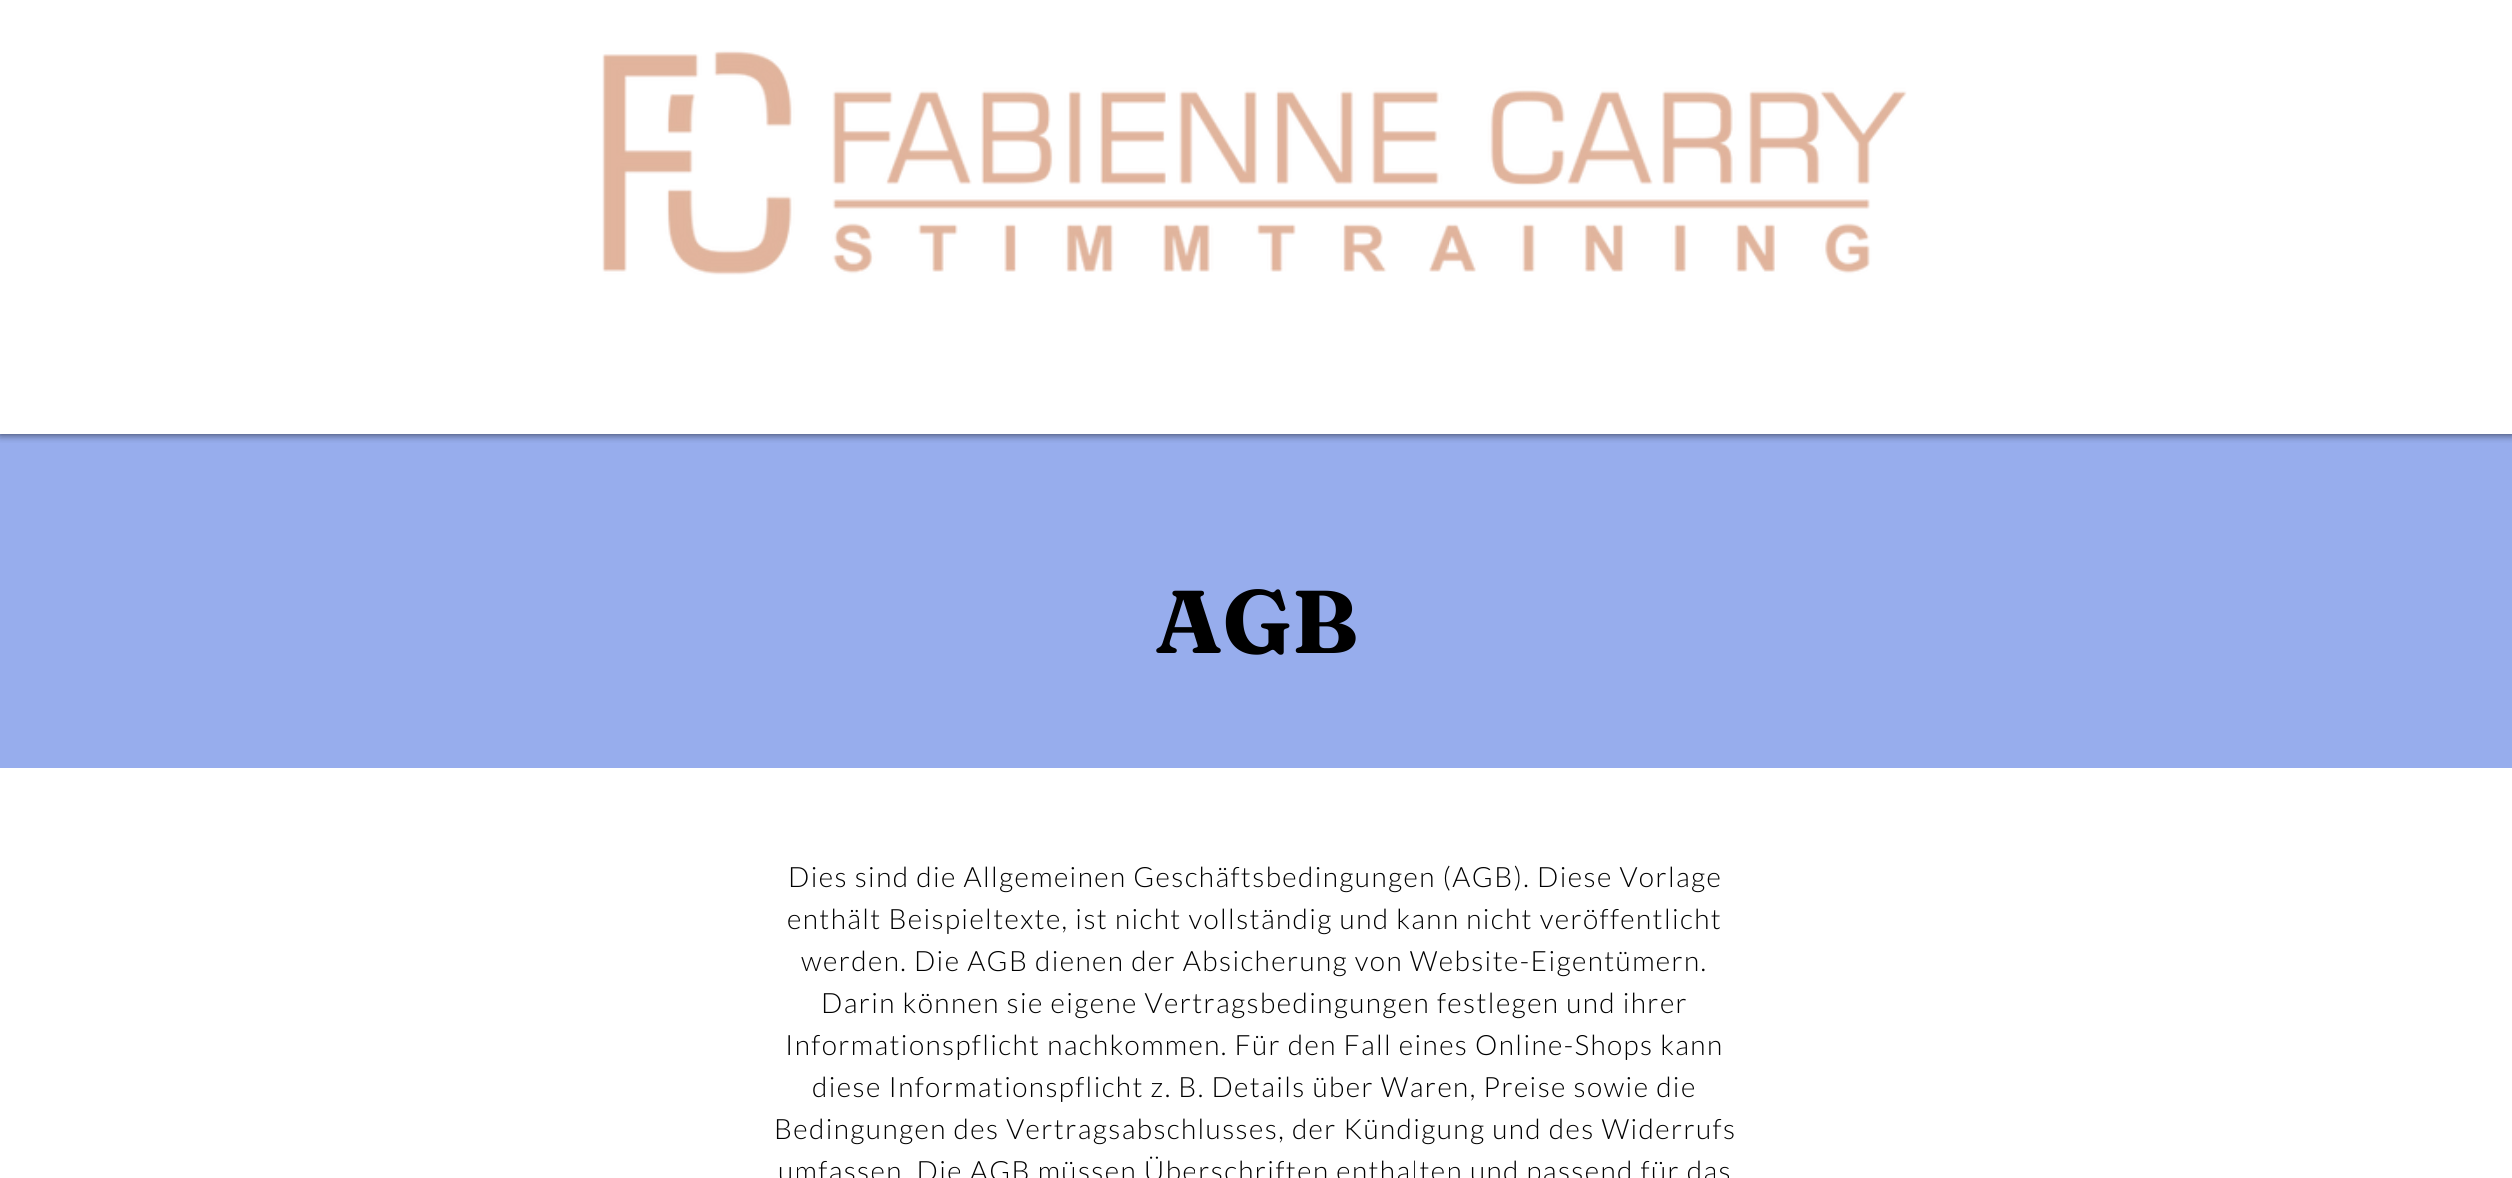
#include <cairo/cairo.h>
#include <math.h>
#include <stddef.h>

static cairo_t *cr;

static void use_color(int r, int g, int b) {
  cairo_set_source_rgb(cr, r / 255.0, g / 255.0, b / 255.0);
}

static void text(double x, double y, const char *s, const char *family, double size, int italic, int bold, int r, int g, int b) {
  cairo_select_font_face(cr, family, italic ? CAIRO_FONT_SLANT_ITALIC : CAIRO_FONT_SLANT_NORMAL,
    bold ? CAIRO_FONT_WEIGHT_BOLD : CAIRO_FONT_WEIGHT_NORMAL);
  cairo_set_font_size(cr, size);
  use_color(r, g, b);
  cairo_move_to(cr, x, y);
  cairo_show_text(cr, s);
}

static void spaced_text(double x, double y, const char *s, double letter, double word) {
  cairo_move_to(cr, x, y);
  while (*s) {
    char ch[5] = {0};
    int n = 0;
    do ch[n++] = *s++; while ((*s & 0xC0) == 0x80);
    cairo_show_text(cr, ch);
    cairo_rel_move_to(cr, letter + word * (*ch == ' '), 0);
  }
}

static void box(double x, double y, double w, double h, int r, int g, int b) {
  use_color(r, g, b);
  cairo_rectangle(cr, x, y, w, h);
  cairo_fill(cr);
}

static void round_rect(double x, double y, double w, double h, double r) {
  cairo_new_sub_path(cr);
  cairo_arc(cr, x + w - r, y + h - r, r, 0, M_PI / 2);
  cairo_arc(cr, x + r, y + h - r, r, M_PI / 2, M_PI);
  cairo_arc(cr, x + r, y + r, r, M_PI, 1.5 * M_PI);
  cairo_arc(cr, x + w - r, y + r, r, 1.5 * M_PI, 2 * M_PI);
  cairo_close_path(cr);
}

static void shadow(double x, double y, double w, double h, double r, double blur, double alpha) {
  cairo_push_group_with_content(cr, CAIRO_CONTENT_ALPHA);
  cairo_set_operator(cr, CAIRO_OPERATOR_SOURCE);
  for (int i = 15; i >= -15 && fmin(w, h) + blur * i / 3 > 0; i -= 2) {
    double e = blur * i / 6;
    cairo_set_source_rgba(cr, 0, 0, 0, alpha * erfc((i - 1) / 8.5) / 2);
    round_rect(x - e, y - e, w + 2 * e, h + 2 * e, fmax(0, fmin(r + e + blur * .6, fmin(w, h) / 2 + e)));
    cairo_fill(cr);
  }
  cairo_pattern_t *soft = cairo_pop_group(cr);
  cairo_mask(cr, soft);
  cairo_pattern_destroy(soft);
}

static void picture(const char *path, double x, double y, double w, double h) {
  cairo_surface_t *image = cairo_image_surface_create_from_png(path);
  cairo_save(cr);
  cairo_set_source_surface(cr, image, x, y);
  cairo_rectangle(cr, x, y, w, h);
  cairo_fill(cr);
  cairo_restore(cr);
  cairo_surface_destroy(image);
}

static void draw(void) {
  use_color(255, 255, 255);
  cairo_paint(cr);
  box(0, 434, 2512, 334, 151, 173, 237);
  cairo_save(cr);
  cairo_rectangle(cr, 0, 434, 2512, 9);
  cairo_clip(cr);
  use_color(0, 0, 0);
  shadow(0, 0, 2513, 434, 0, 4.5, 0.7);
  cairo_restore(cr);
  picture("img_01.png", 602, 50, 1305, 225);
  text(1155, 653, "AGB", "Fraunces", 89, 0, 1, 0, 0, 0);
  cairo_select_font_face(cr, "Lato Light", CAIRO_FONT_SLANT_NORMAL, CAIRO_FONT_WEIGHT_NORMAL);
  cairo_set_font_size(cr, 28);
  spaced_text(788, 887, "Dies sind die Allgemeinen Geschäftsbedingungen (AGB). Diese Vorlage", 1.4, 0);
  spaced_text(787, 929, "enthält Beispieltexte, ist nicht vollständig und kann nicht veröffentlicht", 1.4, 0);
  spaced_text(801, 971, "werden. Die AGB dienen der Absicherung von Website-Eigentümern.", 1.4, 0);
  spaced_text(821, 1013, "Darin können sie eigene Vertragsbedingungen festlegen und ihrer", 1.4, 0);
  spaced_text(785, 1055, "Informationspflicht nachkommen. Für den Fall eines Online-Shops kann", 1.4, 0);
  spaced_text(812, 1097, "diese Informationspflicht z. B. Details über Waren, Preise sowie die", 1.4, 0);
  spaced_text(774, 1139, "Bedingungen des Vertragsabschlusses, der Kündigung und des Widerrufs", 1.4, 0);
  spaced_text(778, 1181, "umfassen. Die AGB müssen Überschriften enthalten und passend für das", 1.4, 0);
}

int main(void) {
  cairo_surface_t *surface = cairo_image_surface_create(CAIRO_FORMAT_RGB24, 2512, 1178);
  cr = cairo_create(surface);
  cairo_font_options_t *options = cairo_font_options_create();
  cairo_font_options_set_hint_metrics(options, CAIRO_HINT_METRICS_OFF);
  cairo_font_options_set_hint_style(options, CAIRO_HINT_STYLE_NONE);
  cairo_set_font_options(cr, options);
  cairo_set_miter_limit(cr, 4);
  draw();
  cairo_surface_write_to_png(surface, "out.png");
  cairo_font_options_destroy(options);
  cairo_destroy(cr);
  cairo_surface_destroy(surface);
  return 0;
}
